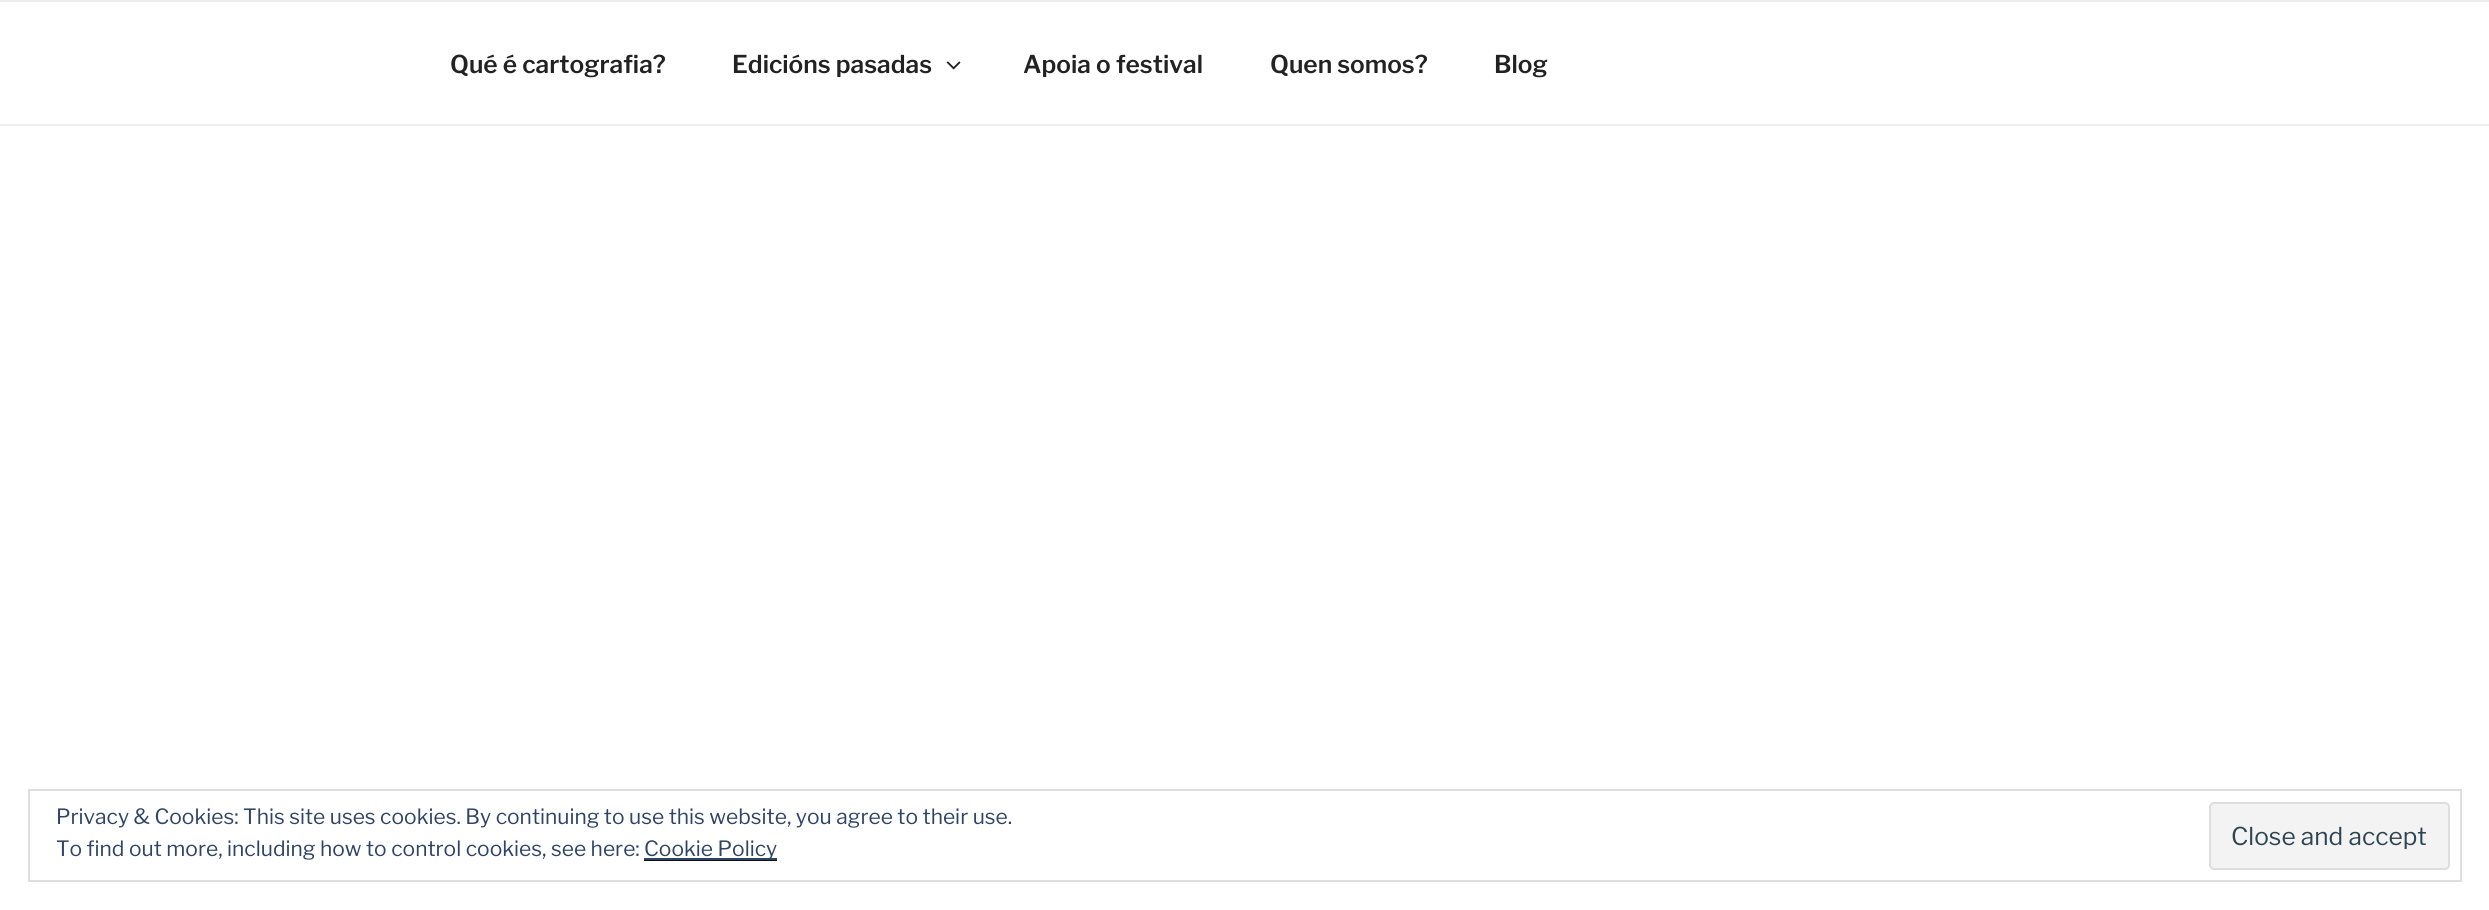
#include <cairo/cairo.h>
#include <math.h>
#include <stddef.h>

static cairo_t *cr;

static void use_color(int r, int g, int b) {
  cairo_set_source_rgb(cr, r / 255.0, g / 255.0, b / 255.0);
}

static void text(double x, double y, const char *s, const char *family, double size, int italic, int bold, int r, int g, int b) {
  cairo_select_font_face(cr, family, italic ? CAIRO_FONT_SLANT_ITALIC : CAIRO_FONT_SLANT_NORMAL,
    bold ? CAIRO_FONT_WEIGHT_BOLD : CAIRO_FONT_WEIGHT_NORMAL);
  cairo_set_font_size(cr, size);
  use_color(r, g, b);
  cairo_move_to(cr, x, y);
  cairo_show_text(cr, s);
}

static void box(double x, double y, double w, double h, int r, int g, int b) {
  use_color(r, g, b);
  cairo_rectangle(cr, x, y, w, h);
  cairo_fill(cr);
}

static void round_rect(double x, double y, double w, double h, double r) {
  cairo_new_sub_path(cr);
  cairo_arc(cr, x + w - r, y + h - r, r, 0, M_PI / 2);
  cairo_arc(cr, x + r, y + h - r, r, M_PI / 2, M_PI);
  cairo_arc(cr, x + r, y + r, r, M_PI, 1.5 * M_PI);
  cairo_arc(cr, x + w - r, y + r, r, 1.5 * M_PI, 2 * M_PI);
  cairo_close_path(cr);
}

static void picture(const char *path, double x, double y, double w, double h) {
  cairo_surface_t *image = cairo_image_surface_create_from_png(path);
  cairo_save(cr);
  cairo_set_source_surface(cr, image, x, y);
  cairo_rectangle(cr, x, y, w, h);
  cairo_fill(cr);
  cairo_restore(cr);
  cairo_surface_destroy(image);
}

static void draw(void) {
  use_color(255, 255, 255);
  cairo_paint(cr);
  box(0, 0, 2489, 2, 238, 238, 238);
  box(0, 124, 2489, 2, 238, 238, 238);
  picture("img_01.png", 946, 61, 15, 9);
  cairo_rectangle(cr, 29, 790, 2432, 91);
  use_color(222, 222, 222);
  cairo_stroke(cr);
  box(644, 860, 133, 1, 15, 15, 15);
  box(644, 858, 133, 2, 46, 68, 103);
  use_color(243, 243, 243);
  round_rect(2210, 803, 239, 66, 4);
  cairo_fill_preserve(cr);
  use_color(222, 222, 222);
  cairo_stroke(cr);
  text(450, 73, "Qué é cartografia?", "Libre Franklin Thin", 24.5, 0, 0, 34, 34, 34);
  text(732, 73, "Edicións pasadas", "Libre Franklin Thin", 24.5, 0, 0, 34, 34, 34);
  text(1023, 73, "Apoia o festival", "Libre Franklin Thin", 24.5, 0, 0, 34, 34, 34);
  text(1270, 73, "Quen somos?", "Libre Franklin Thin", 24.5, 0, 0, 34, 34, 34);
  text(1494, 73, "Blog", "Libre Franklin Thin", 24.5, 0, 0, 34, 34, 34);
  text(56, 824, "Privacy & Cookies: This site uses cookies. By continuing to use this website, you agree to their use.", "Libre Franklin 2 Thin", 21, 0, 0, 46, 68, 103);
  text(56, 856, "To find out more, including how to control cookies, see here:", "Libre Franklin 2 Thin", 21, 0, 0, 46, 68, 103);
  text(644, 856, "Cookie Policy", "Libre Franklin 2 Thin", 21, 0, 0, 46, 68, 103);
  text(2231, 845, "Close and accept", "Libre Franklin 2 Thin", 24.5, 0, 0, 46, 68, 83);
}

int main(void) {
  cairo_surface_t *surface = cairo_image_surface_create(CAIRO_FORMAT_RGB24, 2489, 910);
  cr = cairo_create(surface);
  cairo_font_options_t *options = cairo_font_options_create();
  cairo_font_options_set_hint_metrics(options, CAIRO_HINT_METRICS_OFF);
  cairo_font_options_set_hint_style(options, CAIRO_HINT_STYLE_NONE);
  cairo_set_font_options(cr, options);
  cairo_set_miter_limit(cr, 4);
  draw();
  cairo_surface_write_to_png(surface, "out.png");
  cairo_font_options_destroy(options);
  cairo_destroy(cr);
  cairo_surface_destroy(surface);
  return 0;
}
